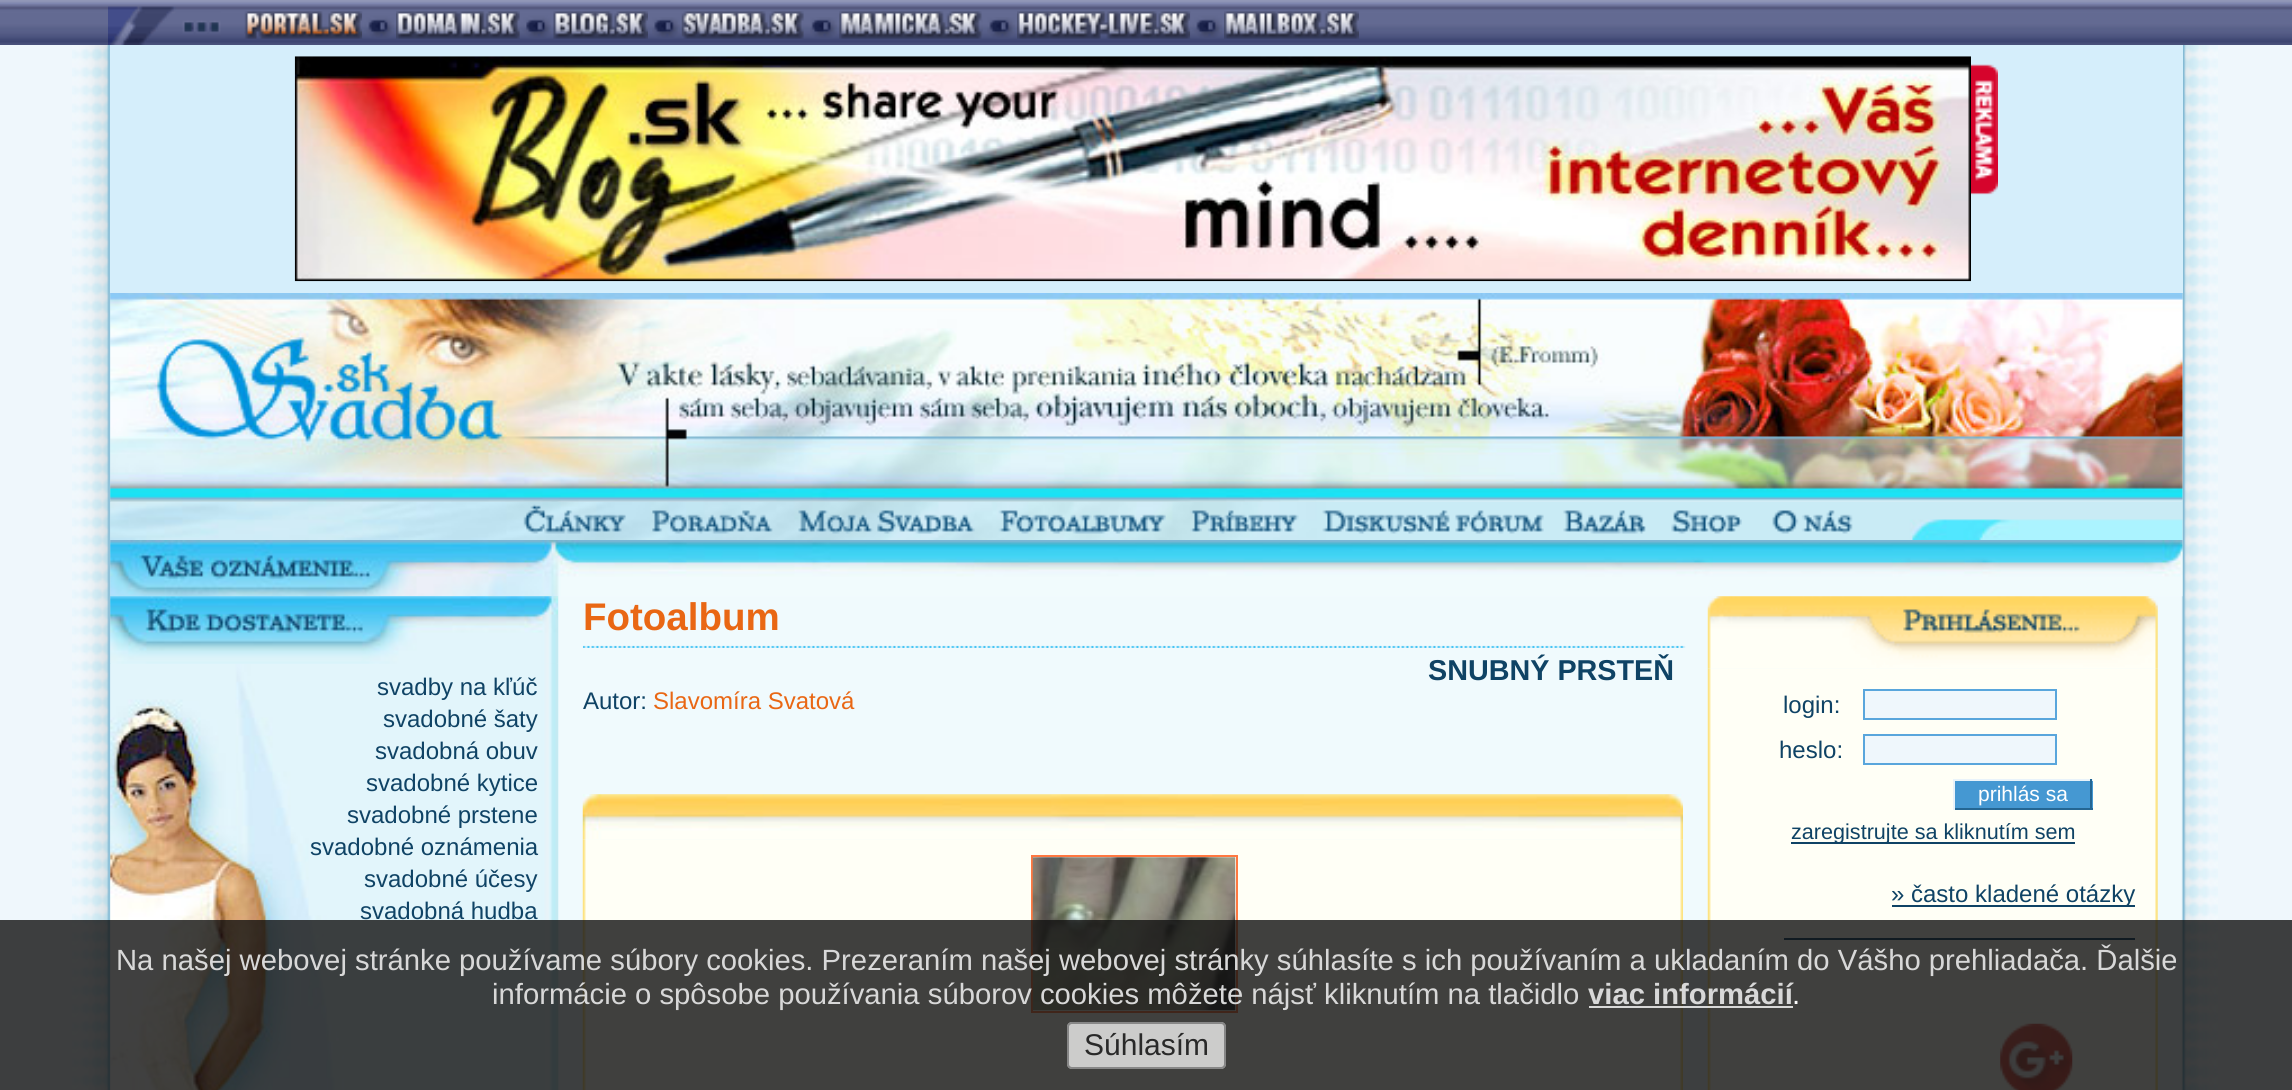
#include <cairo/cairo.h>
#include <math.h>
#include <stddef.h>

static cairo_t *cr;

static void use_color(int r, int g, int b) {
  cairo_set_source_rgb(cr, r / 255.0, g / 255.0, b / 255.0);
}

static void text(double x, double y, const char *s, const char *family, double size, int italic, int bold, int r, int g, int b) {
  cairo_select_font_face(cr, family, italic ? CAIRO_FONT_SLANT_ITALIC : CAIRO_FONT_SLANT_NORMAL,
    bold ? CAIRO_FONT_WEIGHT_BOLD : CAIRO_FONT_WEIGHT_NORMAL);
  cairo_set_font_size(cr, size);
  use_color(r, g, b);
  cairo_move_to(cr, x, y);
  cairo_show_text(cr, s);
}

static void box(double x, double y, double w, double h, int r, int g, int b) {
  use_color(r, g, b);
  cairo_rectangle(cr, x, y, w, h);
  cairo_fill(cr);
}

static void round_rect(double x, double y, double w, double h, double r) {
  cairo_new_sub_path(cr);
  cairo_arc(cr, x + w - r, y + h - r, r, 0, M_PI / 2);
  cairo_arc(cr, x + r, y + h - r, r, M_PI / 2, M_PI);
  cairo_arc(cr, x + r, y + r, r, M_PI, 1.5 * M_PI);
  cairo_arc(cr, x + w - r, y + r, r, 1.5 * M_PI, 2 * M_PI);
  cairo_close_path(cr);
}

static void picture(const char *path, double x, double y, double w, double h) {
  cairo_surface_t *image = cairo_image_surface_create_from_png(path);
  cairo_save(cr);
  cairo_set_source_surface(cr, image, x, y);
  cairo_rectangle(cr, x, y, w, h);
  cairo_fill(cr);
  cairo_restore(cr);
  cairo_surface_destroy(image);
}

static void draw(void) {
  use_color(239, 247, 252);
  cairo_paint(cr);
  picture("img_01.png", 0, 0, 2292, 45);
  picture("img_02.png", 108, 6, 113, 39);
  picture("img_03.png", 244, 11, 119, 28);
  picture("img_04.png", 362, 13, 32, 25);
  picture("img_05.png", 396, 11, 124, 28);
  picture("img_06.png", 519, 13, 32, 25);
  picture("img_07.png", 553, 11, 95, 28);
  picture("img_08.png", 652, 17, 28, 21);
  picture("img_09.png", 681, 11, 123, 28);
  picture("img_10.png", 810, 17, 27, 21);
  picture("img_11.png", 839, 11, 144, 28);
  picture("img_12.png", 987, 17, 28, 21);
  picture("img_13.png", 1017, 11, 174, 28);
  picture("img_04.png", 1190, 13, 32, 25);
  picture("img_14.png", 1224, 11, 135, 28);
  picture("img_15.png", 72, 45, 2146, 1045);
  box(110, 45, 2073, 248, 213, 238, 251);
  picture("img_16.png", 294, 56, 1677, 226);
  picture("img_17.png", 1971, 64, 27, 131);
  picture("img_18.png", 110, 293, 2073, 209);
  picture("img_19.png", 110, 501, 2073, 39);
  picture("img_20.png", 523, 504, 103, 30);
  picture("img_21.png", 652, 510, 121, 24);
  picture("img_22.png", 798, 510, 177, 24);
  picture("img_23.png", 998, 510, 168, 24);
  picture("img_24.png", 1190, 510, 109, 24);
  picture("img_25.png", 1322, 510, 222, 24);
  picture("img_26.png", 1563, 510, 83, 24);
  picture("img_27.png", 1671, 510, 71, 24);
  picture("img_28.png", 1772, 510, 81, 24);
  picture("img_29.png", 110, 540, 2073, 57);
  picture("img_30.png", 582, 645, 1104, 3);
  picture("img_31.png", 582, 794, 1101, 46);
  picture("img_32.png", 582, 839, 1101, 251);
  cairo_rectangle(cr, 1032, 856, 205, 156);
  use_color(255, 120, 65);
  cairo_stroke(cr);
  picture("img_33.png", 1032, 857, 204, 154);
  picture("img_34.png", 110, 596, 448, 68);
  picture("img_35.png", 110, 664, 448, 426);
  picture("img_36.png", 1707, 596, 451, 73);
  picture("img_37.png", 1707, 668, 451, 187);
  use_color(239, 247, 252);
  cairo_rectangle(cr, 1864, 690, 192, 29);
  cairo_fill_preserve(cr);
  use_color(89, 166, 220);
  cairo_stroke(cr);
  use_color(239, 247, 252);
  cairo_rectangle(cr, 1864, 735, 192, 29);
  cairo_fill_preserve(cr);
  use_color(89, 166, 220);
  cairo_stroke(cr);
  box(1955, 781, 138, 27, 69, 152, 210);
  box(1953, 779, 140, 2, 233, 243, 250);
  box(2090, 779, 2, 31, 36, 102, 147);
  box(1953, 808, 140, 2, 36, 102, 147);
  box(1953, 779, 2, 31, 233, 243, 250);
  box(1791, 842, 284, 2, 15, 67, 101);
  picture("img_38.png", 1707, 855, 451, 135);
  box(1892, 905, 243, 2, 15, 67, 101);
  box(1784, 938, 351, 2, 15, 67, 101);
  picture("img_39.png", 1707, 990, 451, 23);
  picture("img_40.png", 1707, 1012, 451, 78);
  picture("img_41.png", 2000, 1023, 73, 67);
  cairo_set_source_rgba(cr, 0.067, 0.067, 0.067, 0.8);
  cairo_rectangle(cr, 0, 920, 2292, 170);
  cairo_fill(cr);
  cairo_set_source_rgba(cr, 1, 1, 1, 0.8);
  cairo_rectangle(cr, 1589, 1006, 204, 2);
  cairo_fill(cr);
  cairo_set_source_rgba(cr, 0.937, 0.937, 0.937, 0.8);
  round_rect(1067, 1022, 159, 47, 5);
  cairo_fill(cr);
  round_rect(1068, 1023, 157, 45, 4);
  cairo_set_source_rgba(cr, 0.463, 0.463, 0.463, 0.8);
  cairo_stroke(cr);
  text(583, 630, "Fotoalbum", "Liberation Sans", 38.5, 0, 1, 233, 103, 20);
  text(1428, 680, "SNUBNÝ PRSTEŇ", "Liberation Sans", 28.75, 0, 1, 15, 67, 101);
  text(583, 709, "Autor:", "Liberation Sans", 24, 0, 0, 15, 67, 101);
  text(653, 709, "Slavomíra Svatová", "Liberation Sans", 24, 0, 0, 233, 103, 20);
  text(377, 695, "svadby na kľúč", "Liberation Sans", 24, 0, 0, 15, 67, 101);
  text(383, 727, "svadobné šaty", "Liberation Sans", 24, 0, 0, 15, 67, 101);
  text(375, 759, "svadobná obuv", "Liberation Sans", 24, 0, 0, 15, 67, 101);
  text(366, 791, "svadobné kytice", "Liberation Sans", 24, 0, 0, 15, 67, 101);
  text(347, 823, "svadobné prstene", "Liberation Sans", 24, 0, 0, 15, 67, 101);
  text(310, 855, "svadobné oznámenia", "Liberation Sans", 24, 0, 0, 15, 67, 101);
  text(364, 887, "svadobné účesy", "Liberation Sans", 24, 0, 0, 15, 67, 101);
  text(360, 919, "svadobná hudba", "Liberation Sans", 24, 0, 0, 15, 67, 101);
  text(1783, 713, "login:", "Liberation Sans", 24, 0, 0, 15, 67, 101);
  text(1779, 758, "heslo:", "Liberation Sans", 24, 0, 0, 15, 67, 101);
  text(1978, 801, "prihlás sa", "Liberation Sans", 21, 0, 0, 255, 255, 255);
  text(1791, 839, "zaregistrujte sa kliknutím sem", "Liberation Sans", 21.6, 0, 0, 15, 67, 101);
  text(1891, 902, "» často kladené otázky", "Liberation Sans", 24, 0, 0, 15, 67, 101);
  text(116, 970, "Na našej webovej stránke používame súbory cookies. Prezeraním našej webovej stránky súhlasíte s ich používaním a ukladaním do Vášho prehliadača. Ďalšie", "Liberation Sans", 29.25, 0, 0, 216, 216, 216);
  text(492, 1004, "informácie o spôsobe používania súborov cookies môžete nájsť kliknutím na tlačidlo", "Liberation Sans", 29.25, 0, 0, 216, 216, 216);
  text(1588, 1004, "viac informácií", "Liberation Sans", 29.25, 0, 1, 216, 216, 216);
  text(1792, 1004, ".", "Liberation Sans", 29.25, 0, 0, 255, 255, 255);
  text(1084, 1055, "Súhlasím", "Liberation Sans", 30, 0, 0, 41, 41, 41);
}

int main(void) {
  cairo_surface_t *surface = cairo_image_surface_create(CAIRO_FORMAT_RGB24, 2292, 1090);
  cr = cairo_create(surface);
  cairo_font_options_t *options = cairo_font_options_create();
  cairo_font_options_set_hint_metrics(options, CAIRO_HINT_METRICS_OFF);
  cairo_font_options_set_hint_style(options, CAIRO_HINT_STYLE_NONE);
  cairo_set_font_options(cr, options);
  cairo_set_miter_limit(cr, 4);
  draw();
  cairo_surface_write_to_png(surface, "out.png");
  cairo_font_options_destroy(options);
  cairo_destroy(cr);
  cairo_surface_destroy(surface);
  return 0;
}
